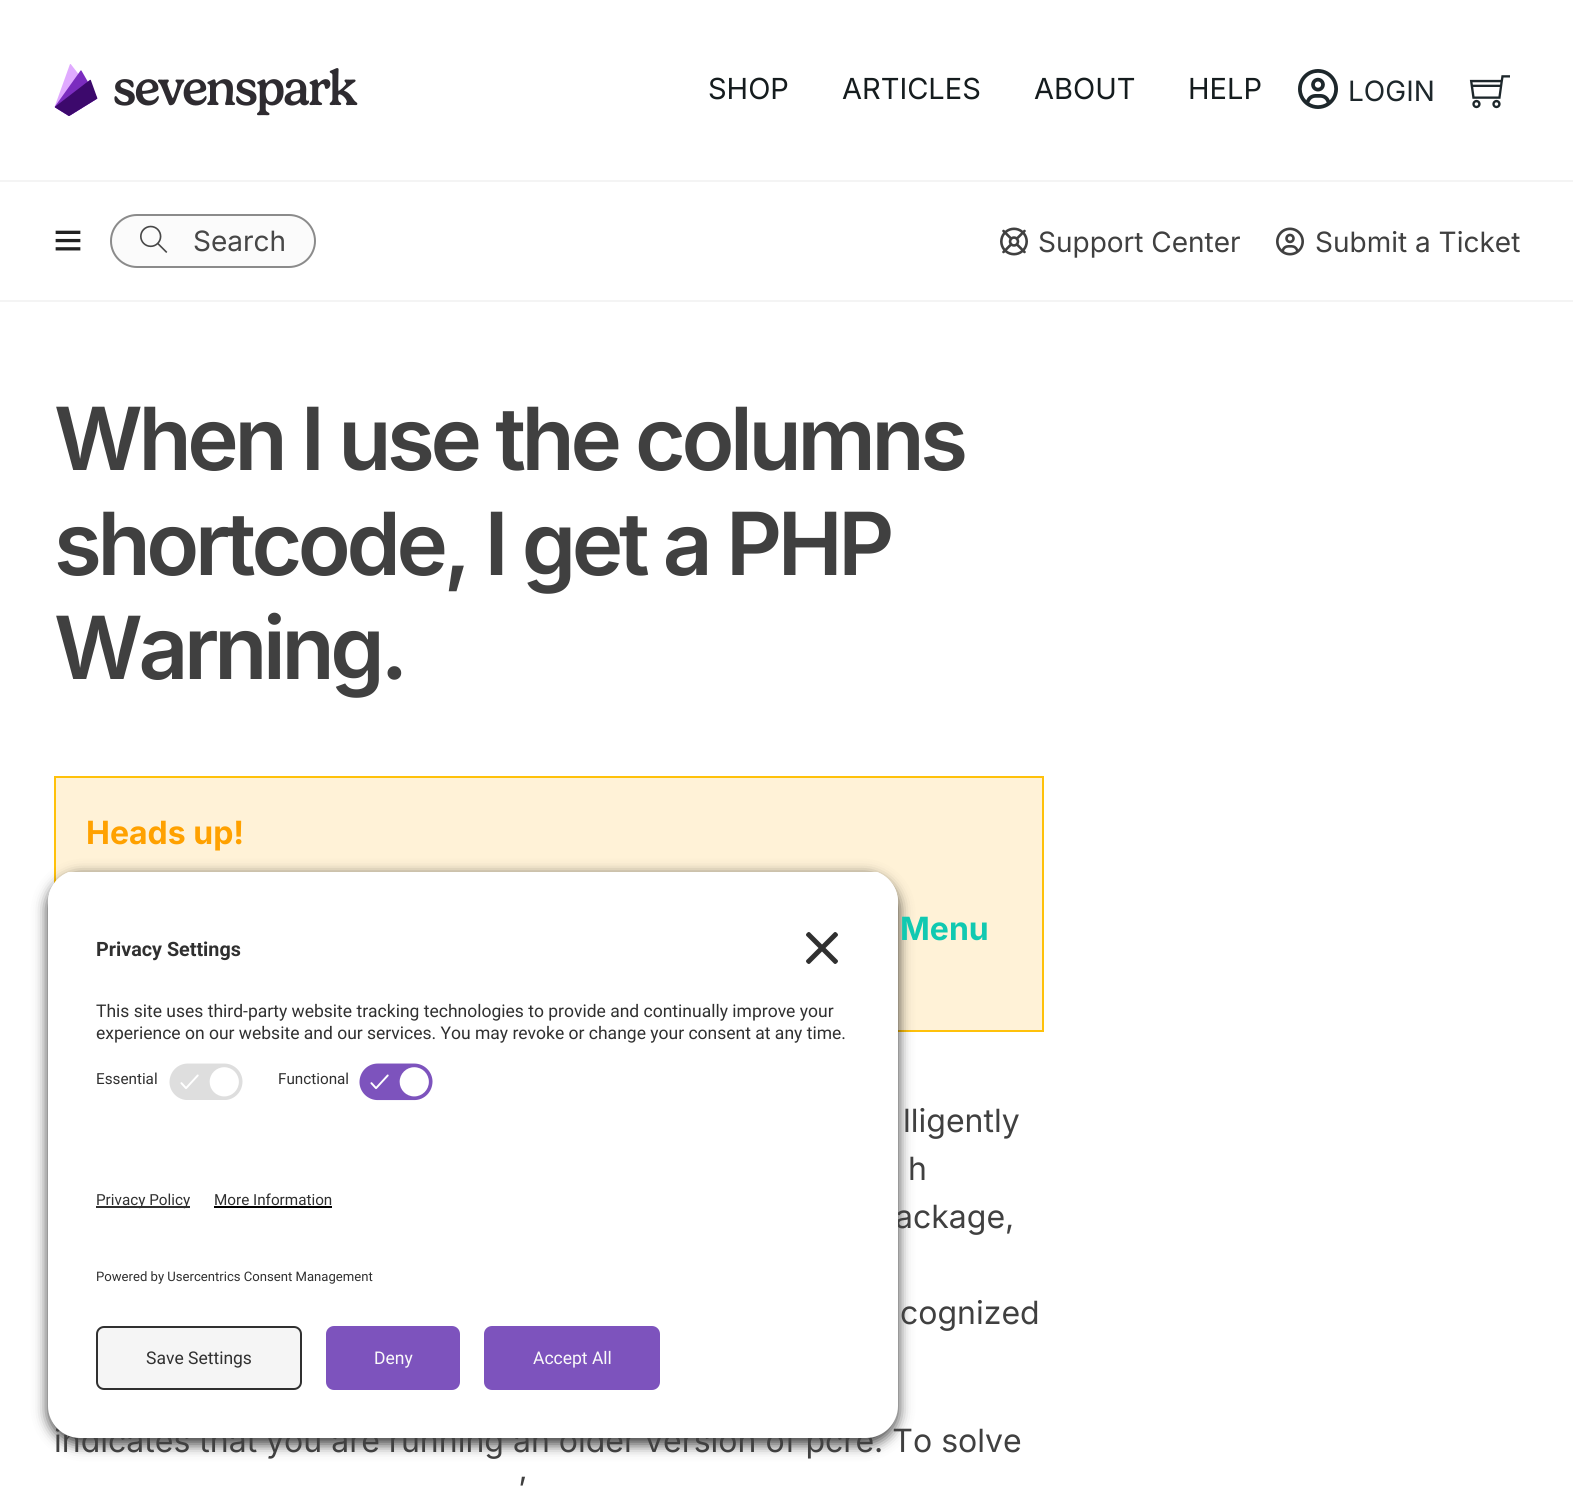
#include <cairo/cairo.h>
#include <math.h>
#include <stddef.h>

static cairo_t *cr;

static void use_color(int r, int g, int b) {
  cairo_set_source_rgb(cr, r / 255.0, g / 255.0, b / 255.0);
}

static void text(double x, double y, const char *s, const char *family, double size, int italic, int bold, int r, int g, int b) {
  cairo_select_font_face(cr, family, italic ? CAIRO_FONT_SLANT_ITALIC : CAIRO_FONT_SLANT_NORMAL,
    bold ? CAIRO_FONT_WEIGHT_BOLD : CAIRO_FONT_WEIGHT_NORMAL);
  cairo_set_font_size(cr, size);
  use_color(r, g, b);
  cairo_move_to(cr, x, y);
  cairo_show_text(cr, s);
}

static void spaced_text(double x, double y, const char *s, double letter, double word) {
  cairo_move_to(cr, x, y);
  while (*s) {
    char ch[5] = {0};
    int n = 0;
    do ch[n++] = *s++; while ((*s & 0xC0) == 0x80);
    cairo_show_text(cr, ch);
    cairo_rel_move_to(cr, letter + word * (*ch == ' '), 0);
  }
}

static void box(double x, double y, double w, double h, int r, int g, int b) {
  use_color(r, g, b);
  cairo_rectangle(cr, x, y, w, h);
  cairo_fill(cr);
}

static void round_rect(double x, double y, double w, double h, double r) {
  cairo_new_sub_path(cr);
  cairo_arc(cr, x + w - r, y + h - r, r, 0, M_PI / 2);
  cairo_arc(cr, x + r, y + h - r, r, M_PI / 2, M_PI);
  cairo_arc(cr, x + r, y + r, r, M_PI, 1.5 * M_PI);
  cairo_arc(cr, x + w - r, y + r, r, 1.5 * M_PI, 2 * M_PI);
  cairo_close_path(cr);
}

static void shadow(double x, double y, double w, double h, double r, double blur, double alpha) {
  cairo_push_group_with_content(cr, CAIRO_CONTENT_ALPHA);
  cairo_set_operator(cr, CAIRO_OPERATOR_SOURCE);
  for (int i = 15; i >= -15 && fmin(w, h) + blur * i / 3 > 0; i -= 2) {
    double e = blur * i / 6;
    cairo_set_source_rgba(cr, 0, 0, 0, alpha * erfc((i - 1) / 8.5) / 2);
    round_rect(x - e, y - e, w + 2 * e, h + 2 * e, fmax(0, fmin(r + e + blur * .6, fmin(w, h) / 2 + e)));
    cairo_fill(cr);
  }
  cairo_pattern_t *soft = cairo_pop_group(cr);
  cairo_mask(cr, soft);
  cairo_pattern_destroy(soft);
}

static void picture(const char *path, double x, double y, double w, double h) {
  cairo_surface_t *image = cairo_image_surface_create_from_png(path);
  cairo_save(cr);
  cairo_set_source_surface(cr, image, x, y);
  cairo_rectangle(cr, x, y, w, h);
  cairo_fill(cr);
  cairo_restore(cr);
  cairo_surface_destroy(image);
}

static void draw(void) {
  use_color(255, 255, 255);
  cairo_paint(cr);
  picture("img_01.png", 54, 64, 304, 52);
  picture("img_02.png", 1298, 69, 40, 40);
  picture("img_03.png", 1469, 75, 41, 34);
  box(0, 180, 1573, 2, 244, 244, 244);
  box(0, 300, 1573, 2, 244, 244, 244);
  picture("img_04.png", 55, 230, 26, 21);
  use_color(251, 251, 251);
  round_rect(111, 215, 204, 52, 26);
  cairo_fill_preserve(cr);
  use_color(139, 139, 139);
  cairo_stroke(cr);
  picture("img_05.png", 140, 225, 28, 28);
  picture("img_06.png", 1000, 227, 28, 29);
  picture("img_07.png", 1276, 227, 28, 29);
  use_color(255, 242, 215);
  cairo_rectangle(cr, 55, 777, 988, 254);
  cairo_fill_preserve(cr);
  use_color(255, 193, 10);
  cairo_stroke(cr);
  use_color(0, 0, 0);
  shadow(48, 876, 850, 568, 32, 7, 0.8);
  cairo_save(cr);
  cairo_new_path(cr);
  cairo_move_to(cr, 80, 870);
  cairo_line_to(cr, 866, 870);
  cairo_curve_to(cr, 883.5, 870, 898, 884.5, 898, 902);
  cairo_line_to(cr, 898, 1132);
  cairo_line_to(cr, 48, 1132);
  cairo_line_to(cr, 48, 902);
  cairo_curve_to(cr, 48, 884.5, 62.5, 870, 80, 870);
  cairo_close_path(cr);
  cairo_clip(cr);
  box(48, 872, 850, 260, 255, 255, 255);
  box(48, 872, 850, 180, 255, 255, 255);
  cairo_restore(cr);
  picture("img_08.png", 806, 932, 32, 32);
  picture("img_09.png", 169, 1063, 74, 37);
  picture("img_10.png", 359, 1063, 74, 38);
  text(708, 99, "SHOP", "Inter", 29, 0, 0, 21, 28, 30);
  text(842, 99, "ARTICLES", "Inter", 29, 0, 0, 21, 28, 30);
  text(1034, 99, "ABOUT", "Inter", 29, 0, 0, 21, 28, 30);
  text(1188, 99, "HELP", "Inter", 29, 0, 0, 21, 28, 30);
  text(1348, 101, "LOGIN", "Inter", 28, 0, 0, 29, 39, 43);
  text(193, 251, "Search", "Inter", 28, 0, 0, 71, 71, 71);
  text(1038, 252, "Support Center", "Inter", 28, 0, 0, 64, 64, 64);
  text(1315, 252, "Submit a Ticket", "Inter", 28, 0, 0, 64, 64, 64);
  cairo_select_font_face(cr, "Inter SemiBold", CAIRO_FONT_SLANT_NORMAL, CAIRO_FONT_WEIGHT_NORMAL);
  cairo_set_font_size(cr, 87);
  spaced_text(54, 470, "When I use the columns", -4.35, 0);
  spaced_text(54, 575, "shortcode, I get a PHP", -4.35, 0);
  spaced_text(54, 679, "Warning.", -4.35, 0);
  text(86, 844, "Heads up!", "Inter", 32, 0, 1, 255, 161, 0);
  text(900, 940, "Menu", "Inter", 32, 0, 1, 17, 201, 177);
  text(903, 1132, "lligently", "Inter", 32, 0, 0, 64, 64, 64);
  text(908, 1180, "h", "Inter", 32, 0, 0, 64, 64, 64);
  text(895, 1228, "ackage,", "Inter", 32, 0, 0, 64, 64, 64);
  text(900, 1324, "cognized", "Inter", 32, 0, 0, 64, 64, 64);
  text(54, 1452, "indicates that you are running an older version of pcre. To solve", "Inter", 32, 0, 0, 64, 64, 64);
  text(518, 1500, "’", "Inter", 32, 0, 0, 64, 64, 64);
  text(96, 956, "Privacy Settings", "Roboto", 19.75, 0, 1, 48, 48, 48);
  text(96, 1017, "This site uses third-party website tracking technologies to provide and continually improve your", "Roboto", 17.5, 0, 0, 48, 48, 48);
  text(96, 1039, "experience on our website and our services. You may revoke or change your consent at any time.", "Roboto", 17.5, 0, 0, 48, 48, 48);
  text(96, 1084, "Essential", "Roboto", 15.25, 0, 0, 48, 48, 48);
  text(278, 1084, "Functional", "Roboto", 15.25, 0, 0, 48, 48, 48);
  use_color(255, 255, 255);
  cairo_new_path(cr);
  cairo_move_to(cr, 48, 1132);
  cairo_line_to(cr, 898, 1132);
  cairo_line_to(cr, 898, 1406);
  cairo_curve_to(cr, 898, 1423.5, 883.5, 1438, 866, 1438);
  cairo_line_to(cr, 80, 1438);
  cairo_curve_to(cr, 62.5, 1438, 48, 1423.5, 48, 1406);
  cairo_close_path(cr);
  cairo_fill(cr);
  box(96, 1206, 94, 2, 48, 48, 48);
  text(96, 1205, "Privacy Policy", "Roboto", 15.25, 0, 0, 48, 48, 48);
  text(214, 1205, "More Information", "Roboto", 15.25, 0, 0, 48, 48, 48);
  box(214, 1206, 118, 2, 0, 0, 0);
  text(96, 1281, "Powered by Usercentrics Consent Management", "Roboto", 13.1, 0, 0, 48, 48, 48);
  use_color(245, 245, 245);
  round_rect(97, 1327, 204, 62, 7);
  cairo_fill_preserve(cr);
  use_color(48, 48, 48);
  cairo_stroke(cr);
  text(146, 1364, "Save Settings", "Roboto", 17.5, 0, 0, 48, 48, 48);
  use_color(125, 83, 189);
  round_rect(326, 1326, 134, 64, 8);
  cairo_fill(cr);
  text(374, 1364, "Deny", "Roboto", 17.5, 0, 0, 250, 250, 250);
  use_color(125, 83, 189);
  round_rect(484, 1326, 176, 64, 8);
  cairo_fill(cr);
  text(533, 1364, "Accept All", "Roboto", 17.5, 0, 0, 250, 250, 250);
}

int main(void) {
  cairo_surface_t *surface = cairo_image_surface_create(CAIRO_FORMAT_RGB24, 1573, 1486);
  cr = cairo_create(surface);
  cairo_font_options_t *options = cairo_font_options_create();
  cairo_font_options_set_hint_metrics(options, CAIRO_HINT_METRICS_OFF);
  cairo_font_options_set_hint_style(options, CAIRO_HINT_STYLE_NONE);
  cairo_set_font_options(cr, options);
  cairo_set_miter_limit(cr, 4);
  draw();
  cairo_surface_write_to_png(surface, "out.png");
  cairo_font_options_destroy(options);
  cairo_destroy(cr);
  cairo_surface_destroy(surface);
  return 0;
}
